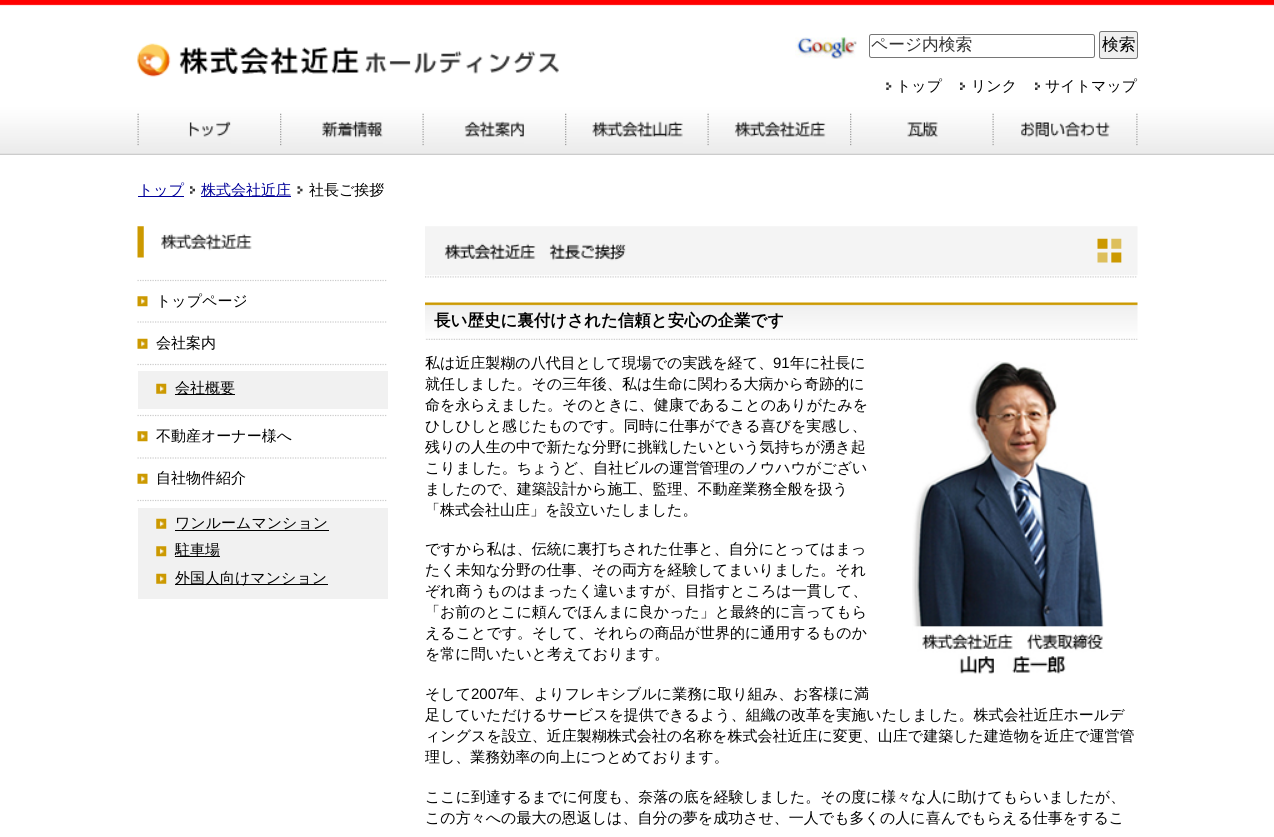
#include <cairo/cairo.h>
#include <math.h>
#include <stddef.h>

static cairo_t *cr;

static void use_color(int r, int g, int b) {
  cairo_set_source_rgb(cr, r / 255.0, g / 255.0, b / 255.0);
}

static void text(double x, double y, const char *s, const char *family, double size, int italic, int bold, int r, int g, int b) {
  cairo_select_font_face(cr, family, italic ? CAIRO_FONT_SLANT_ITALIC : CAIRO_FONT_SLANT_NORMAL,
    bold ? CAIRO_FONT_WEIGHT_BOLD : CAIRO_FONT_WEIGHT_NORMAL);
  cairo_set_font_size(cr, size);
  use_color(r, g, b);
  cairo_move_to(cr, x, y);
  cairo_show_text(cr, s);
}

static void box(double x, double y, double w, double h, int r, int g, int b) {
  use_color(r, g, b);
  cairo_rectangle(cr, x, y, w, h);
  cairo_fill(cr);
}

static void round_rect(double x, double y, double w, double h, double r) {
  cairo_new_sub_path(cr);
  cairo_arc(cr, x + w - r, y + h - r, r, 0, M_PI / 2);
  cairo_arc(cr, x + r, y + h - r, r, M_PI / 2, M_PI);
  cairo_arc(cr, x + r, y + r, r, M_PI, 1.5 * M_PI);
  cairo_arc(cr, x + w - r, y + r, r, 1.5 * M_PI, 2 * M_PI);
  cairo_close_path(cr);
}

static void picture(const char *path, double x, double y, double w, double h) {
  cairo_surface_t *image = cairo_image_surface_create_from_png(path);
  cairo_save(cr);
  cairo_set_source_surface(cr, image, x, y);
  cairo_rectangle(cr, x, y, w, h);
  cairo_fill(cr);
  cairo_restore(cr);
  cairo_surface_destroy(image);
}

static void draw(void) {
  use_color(255, 255, 255);
  cairo_paint(cr);
  picture("img_01.png", 0, 0, 1274, 155);
  picture("img_02.png", 137, 43, 422, 34);
  picture("img_03.png", 795, 37, 62, 22);
  round_rect(869.5, 34.5, 225, 23, 2);
  use_color(118, 118, 118);
  cairo_set_line_width(cr, 1);
  cairo_stroke(cr);
  use_color(239, 239, 239);
  round_rect(1099.5, 31.5, 38, 27, 2);
  cairo_fill_preserve(cr);
  use_color(118, 118, 118);
  cairo_stroke(cr);
  picture("img_04.png", 886, 82, 6, 8);
  picture("img_05.png", 960, 82, 5, 8);
  picture("img_06.png", 1035, 82, 5, 8);
  picture("img_07.png", 137, 113, 94, 33);
  picture("img_08.png", 280, 113, 103, 33);
  picture("img_09.png", 422, 113, 102, 33);
  picture("img_10.png", 565, 113, 118, 33);
  picture("img_11.png", 707, 113, 119, 33);
  picture("img_12.png", 850, 113, 88, 33);
  picture("img_13.png", 992, 113, 146, 33);
  box(138, 196, 46, 1, 0, 0, 153);
  picture("img_14.png", 190, 186, 5, 8);
  box(201, 196, 90, 1, 0, 0, 153);
  picture("img_15.png", 297, 186, 6, 8);
  picture("img_16.png", 137, 226, 115, 32);
  cairo_new_path(cr);
  cairo_move_to(cr, 137.5, 280.5);
  cairo_line_to(cr, 387.5, 280.5);
  use_color(204, 204, 204);
  cairo_set_line_width(cr, 1.2);
  cairo_set_dash(cr, (double[]){1.25, 1.25}, 2, 0);
  cairo_stroke(cr);
  picture("img_17.png", 137, 296, 11, 11);
  cairo_new_path(cr);
  cairo_move_to(cr, 137.5, 322);
  cairo_line_to(cr, 387.5, 322);
  cairo_stroke(cr);
  picture("img_18.png", 137, 338, 11, 11);
  cairo_new_path(cr);
  cairo_move_to(cr, 137.5, 364.5);
  cairo_line_to(cr, 387.5, 364.5);
  cairo_stroke(cr);
  box(138, 371, 250, 38, 241, 241, 241);
  picture("img_19.png", 156, 383, 11, 11);
  box(175, 394, 60, 1, 0, 0, 0);
  cairo_new_path(cr);
  cairo_move_to(cr, 137.5, 415.5);
  cairo_line_to(cr, 387.5, 415.5);
  use_color(204, 204, 204);
  cairo_stroke(cr);
  picture("img_17.png", 137, 431, 11, 11);
  cairo_new_path(cr);
  cairo_move_to(cr, 137.5, 458);
  cairo_line_to(cr, 387.5, 458);
  cairo_stroke(cr);
  picture("img_18.png", 137, 473, 11, 11);
  cairo_new_path(cr);
  cairo_move_to(cr, 137.5, 500.5);
  cairo_line_to(cr, 387.5, 500.5);
  cairo_stroke(cr);
  box(138, 508, 250, 91, 241, 241, 241);
  picture("img_19.png", 156, 518, 11, 11);
  box(175, 530, 154, 1, 0, 0, 0);
  picture("img_20.png", 156, 546, 11, 11);
  box(175, 556, 45, 1, 0, 0, 0);
  picture("img_19.png", 156, 573, 11, 11);
  box(175, 584, 153, 1, 0, 0, 0);
  picture("img_21.png", 425, 226, 713, 52);
  picture("img_22.png", 425, 302, 713, 38);
  picture("img_23.png", 912, 361, 192, 313);
  text(871, 50, "ページ内検索", "WenQuanYi Zen Hei Medium", 16.75, 0, 0, 51, 51, 51);
  text(1102, 50, "検索", "WenQuanYi Zen Hei Medium", 16.75, 0, 0, 0, 0, 0);
  text(896, 91, "トップ", "WenQuanYi Zen Hei Medium", 15, 0, 0, 0, 0, 0);
  text(971, 91, "リンク", "WenQuanYi Zen Hei Medium", 15, 0, 0, 0, 0, 0);
  text(1045, 91, "サイトマップ", "WenQuanYi Zen Hei Medium", 15, 0, 0, 0, 0, 0);
  text(138, 195, "トップ", "WenQuanYi Zen Hei Medium", 15, 0, 0, 0, 0, 153);
  text(201, 195, "株式会社近庄", "WenQuanYi Zen Hei Medium", 15, 0, 0, 0, 0, 153);
  text(309, 195, "社長ご挨拶", "WenQuanYi Zen Hei Medium", 15, 0, 0, 0, 0, 0);
  text(156, 306, "トップページ", "WenQuanYi Zen Hei Medium", 15, 0, 0, 0, 0, 0);
  text(156, 348, "会社案内", "WenQuanYi Zen Hei Medium", 15, 0, 0, 0, 0, 0);
  text(175, 393, "会社概要", "WenQuanYi Zen Hei Medium", 15, 0, 0, 0, 0, 0);
  text(156, 441, "不動産オーナー様へ", "WenQuanYi Zen Hei Medium", 15, 0, 0, 0, 0, 0);
  text(156, 483, "自社物件紹介", "WenQuanYi Zen Hei Medium", 15, 0, 0, 0, 0, 0);
  text(175, 528, "ワンルームマンション", "WenQuanYi Zen Hei Medium", 15, 0, 0, 0, 0, 0);
  text(175, 555, "駐車場", "WenQuanYi Zen Hei Medium", 15, 0, 0, 0, 0, 0);
  text(175, 583, "外国人向けマンション", "WenQuanYi Zen Hei Medium", 15, 0, 0, 0, 0, 0);
  text(434, 326, "長い歴史に裏付けされた信頼と安心の企業です", "WenQuanYi Zen Hei", 16.5, 0, 1, 0, 0, 0);
  text(425, 368, "私は近庄製糊の八代目として現場での実践を経て、", "WenQuanYi Zen Hei Medium", 15, 0, 0, 0, 0, 0);
  text(773, 368, "91", "Liberation Sans", 15, 0, 0, 0, 0, 0);
  text(790, 368, "年に社長に", "WenQuanYi Zen Hei Medium", 15, 0, 0, 0, 0, 0);
  text(425, 389, "就任しました。その三年後、私は生命に関わる大病から奇跡的に", "WenQuanYi Zen Hei Medium", 15, 0, 0, 0, 0, 0);
  text(425, 410, "命を永らえました。そのときに、健康であることのありがたみを", "WenQuanYi Zen Hei Medium", 15, 0, 0, 0, 0, 0);
  text(425, 431, "ひしひしと感じたものです。同時に仕事ができる喜びを実感し、", "WenQuanYi Zen Hei Medium", 15, 0, 0, 0, 0, 0);
  text(425, 452, "残りの人生の中で新たな分野に挑戦したいという気持ちが湧き起", "WenQuanYi Zen Hei Medium", 15, 0, 0, 0, 0, 0);
  text(425, 473, "こりました。ちょうど、自社ビルの運営管理のノウハウがござい", "WenQuanYi Zen Hei Medium", 15, 0, 0, 0, 0, 0);
  text(425, 494, "ましたので、建築設計から施工、監理、不動産業務全般を扱う", "WenQuanYi Zen Hei Medium", 15, 0, 0, 0, 0, 0);
  text(425, 515, "「株式会社山庄」を設立いたしました。", "WenQuanYi Zen Hei Medium", 15, 0, 0, 0, 0, 0);
  text(425, 554, "ですから私は、伝統に裏打ちされた仕事と、自分にとってはまっ", "WenQuanYi Zen Hei Medium", 15, 0, 0, 0, 0, 0);
  text(425, 575, "たく未知な分野の仕事、その両方を経験してまいりました。それ", "WenQuanYi Zen Hei Medium", 15, 0, 0, 0, 0, 0);
  text(425, 596, "ぞれ商うものはまったく違いますが、目指すところは一貫して、", "WenQuanYi Zen Hei Medium", 15, 0, 0, 0, 0, 0);
  text(425, 617, "「お前のとこに頼んでほんまに良かった」と最終的に言ってもら", "WenQuanYi Zen Hei Medium", 15, 0, 0, 0, 0, 0);
  text(425, 638, "えることです。そして、それらの商品が世界的に通用するものか", "WenQuanYi Zen Hei Medium", 15, 0, 0, 0, 0, 0);
  text(425, 659, "を常に問いたいと考えております。", "WenQuanYi Zen Hei Medium", 15, 0, 0, 0, 0, 0);
  text(425, 699, "そして", "WenQuanYi Zen Hei Medium", 15, 0, 0, 0, 0, 0);
  text(471, 699, "2007", "Liberation Sans", 15, 0, 0, 0, 0, 0);
  text(504, 699, "年、よりフレキシブルに業務に取り組み、お客様に満", "WenQuanYi Zen Hei Medium", 15, 0, 0, 0, 0, 0);
  text(425, 720, "足していただけるサービスを提供できるよう、組織の改革を実施いたしました。株式会社近庄ホールデ", "WenQuanYi Zen Hei Medium", 15, 0, 0, 0, 0, 0);
  text(425, 741, "ィングスを設立、近庄製糊株式会社の名称を株式会社近庄に変更、山庄で建築した建造物を近庄で運営管", "WenQuanYi Zen Hei Medium", 15, 0, 0, 0, 0, 0);
  text(425, 762, "理し、業務効率の向上につとめております。", "WenQuanYi Zen Hei Medium", 15, 0, 0, 0, 0, 0);
  text(425, 802, "ここに到達するまでに何度も、奈落の底を経験しました。その度に様々な人に助けてもらいましたが、", "WenQuanYi Zen Hei Medium", 15, 0, 0, 0, 0, 0);
  text(425, 823, "この方々への最大の恩返しは、自分の夢を成功させ、一人でも多くの人に喜んでもらえる仕事をするこ", "WenQuanYi Zen Hei Medium", 15, 0, 0, 0, 0, 0);
}

int main(void) {
  cairo_surface_t *surface = cairo_image_surface_create(CAIRO_FORMAT_RGB24, 1274, 837);
  cr = cairo_create(surface);
  cairo_font_options_t *options = cairo_font_options_create();
  cairo_font_options_set_hint_metrics(options, CAIRO_HINT_METRICS_OFF);
  cairo_font_options_set_hint_style(options, CAIRO_HINT_STYLE_NONE);
  cairo_set_font_options(cr, options);
  cairo_set_miter_limit(cr, 4);
  draw();
  cairo_surface_write_to_png(surface, "out.png");
  cairo_font_options_destroy(options);
  cairo_destroy(cr);
  cairo_surface_destroy(surface);
  return 0;
}
